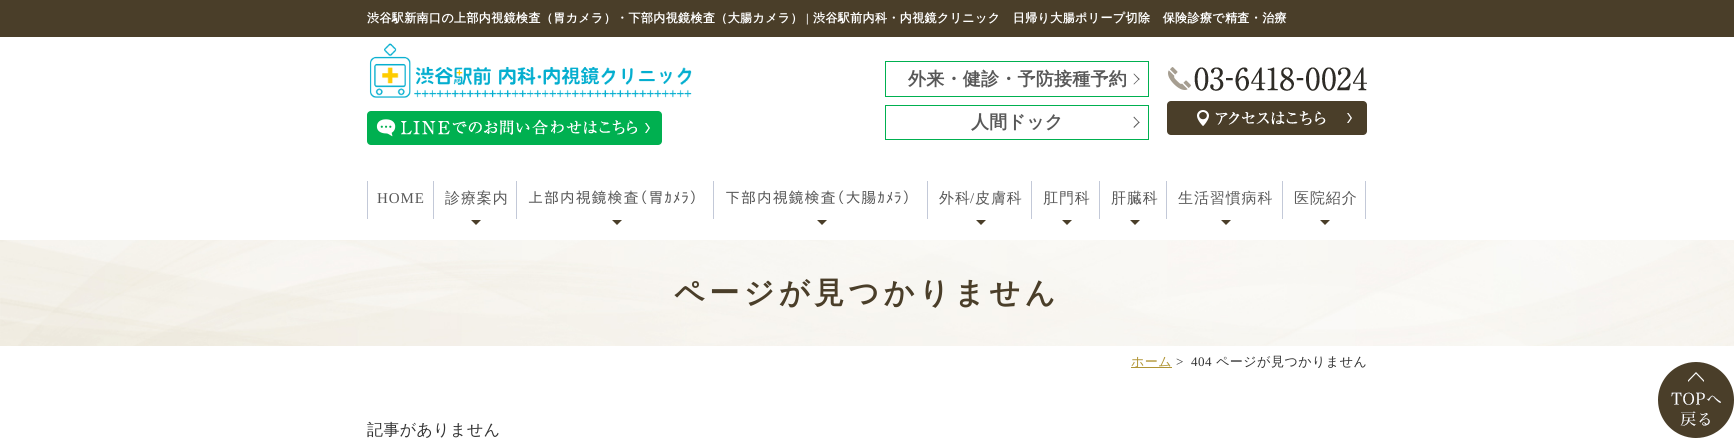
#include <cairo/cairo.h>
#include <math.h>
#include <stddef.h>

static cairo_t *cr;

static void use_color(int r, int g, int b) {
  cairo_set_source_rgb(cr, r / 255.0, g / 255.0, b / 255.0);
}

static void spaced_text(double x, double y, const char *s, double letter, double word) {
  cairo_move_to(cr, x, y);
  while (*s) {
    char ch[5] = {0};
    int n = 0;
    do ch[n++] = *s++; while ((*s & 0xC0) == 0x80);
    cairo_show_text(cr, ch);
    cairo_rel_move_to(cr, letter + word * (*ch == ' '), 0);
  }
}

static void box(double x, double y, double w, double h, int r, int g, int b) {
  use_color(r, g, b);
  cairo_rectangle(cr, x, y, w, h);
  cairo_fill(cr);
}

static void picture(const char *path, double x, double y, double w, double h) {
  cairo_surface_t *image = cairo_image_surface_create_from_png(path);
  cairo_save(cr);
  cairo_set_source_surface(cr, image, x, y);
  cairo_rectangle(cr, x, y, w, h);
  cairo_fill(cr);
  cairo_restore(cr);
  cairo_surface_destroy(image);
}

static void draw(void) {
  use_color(255, 255, 255);
  cairo_paint(cr);
  box(0, 0, 1734, 37, 74, 62, 41);
  picture("img_01.png", 369, 43, 323, 55);
  picture("img_02.png", 367, 111, 295, 34);
  cairo_rectangle(cr, 885.5, 61.5, 263, 35);
  use_color(0, 176, 80);
  cairo_set_line_width(cr, 1);
  cairo_stroke(cr);
  use_color(88, 88, 88);
  cairo_new_path(cr);
  cairo_move_to(cr, 1133.5, 74);
  cairo_line_to(cr, 1134, 73.5);
  cairo_line_to(cr, 1139.5, 79);
  cairo_line_to(cr, 1139, 80);
  cairo_close_path(cr);
  cairo_fill(cr);
  cairo_new_path(cr);
  cairo_move_to(cr, 1133.5, 84);
  cairo_line_to(cr, 1139, 78.5);
  cairo_line_to(cr, 1139.5, 79);
  cairo_line_to(cr, 1134, 84.5);
  cairo_close_path(cr);
  cairo_fill(cr);
  cairo_rectangle(cr, 885.5, 105.5, 263, 34);
  use_color(0, 176, 80);
  cairo_stroke(cr);
  use_color(88, 88, 88);
  cairo_new_path(cr);
  cairo_move_to(cr, 1133.5, 117.5);
  cairo_line_to(cr, 1134, 116.5);
  cairo_line_to(cr, 1139.5, 122.5);
  cairo_line_to(cr, 1139, 123);
  cairo_close_path(cr);
  cairo_fill(cr);
  cairo_new_path(cr);
  cairo_move_to(cr, 1133.5, 127);
  cairo_line_to(cr, 1139, 121.5);
  cairo_line_to(cr, 1139.5, 122.5);
  cairo_line_to(cr, 1134, 128);
  cairo_close_path(cr);
  cairo_fill(cr);
  picture("img_03.png", 1168, 67, 199, 24);
  picture("img_04.png", 1167, 101, 200, 34);
  box(367, 181, 1, 38, 195, 201, 216);
  box(433, 181, 1, 38, 195, 201, 216);
  box(516, 181, 1, 38, 195, 201, 216);
  use_color(74, 62, 41);
  cairo_new_path(cr);
  cairo_move_to(cr, 471, 220);
  cairo_line_to(cr, 481, 220);
  cairo_line_to(cr, 476, 225);
  cairo_close_path(cr);
  cairo_fill(cr);
  box(713, 181, 1, 38, 195, 201, 216);
  use_color(74, 62, 41);
  cairo_new_path(cr);
  cairo_move_to(cr, 612, 220);
  cairo_line_to(cr, 622, 220);
  cairo_line_to(cr, 617, 225);
  cairo_close_path(cr);
  cairo_fill(cr);
  box(927, 181, 1, 38, 195, 201, 216);
  use_color(74, 62, 41);
  cairo_new_path(cr);
  cairo_move_to(cr, 817, 220);
  cairo_line_to(cr, 827, 220);
  cairo_line_to(cr, 822, 225);
  cairo_close_path(cr);
  cairo_fill(cr);
  box(1031, 181, 1, 38, 195, 201, 216);
  use_color(74, 62, 41);
  cairo_new_path(cr);
  cairo_move_to(cr, 976, 220);
  cairo_line_to(cr, 986, 220);
  cairo_line_to(cr, 981, 225);
  cairo_close_path(cr);
  cairo_fill(cr);
  box(1099, 181, 1, 38, 195, 201, 216);
  use_color(74, 62, 41);
  cairo_new_path(cr);
  cairo_move_to(cr, 1062, 220);
  cairo_line_to(cr, 1072, 220);
  cairo_line_to(cr, 1067, 225);
  cairo_close_path(cr);
  cairo_fill(cr);
  box(1166, 181, 1, 38, 195, 201, 216);
  use_color(74, 62, 41);
  cairo_new_path(cr);
  cairo_move_to(cr, 1130, 220);
  cairo_line_to(cr, 1140, 220);
  cairo_line_to(cr, 1135, 225);
  cairo_close_path(cr);
  cairo_fill(cr);
  box(1282, 181, 1, 38, 195, 201, 216);
  use_color(74, 62, 41);
  cairo_new_path(cr);
  cairo_move_to(cr, 1221, 220);
  cairo_line_to(cr, 1231, 220);
  cairo_line_to(cr, 1226, 225);
  cairo_close_path(cr);
  cairo_fill(cr);
  box(1365, 181, 1, 38, 195, 201, 216);
  use_color(74, 62, 41);
  cairo_new_path(cr);
  cairo_move_to(cr, 1320, 220);
  cairo_line_to(cr, 1330, 220);
  cairo_line_to(cr, 1325, 225);
  cairo_close_path(cr);
  cairo_fill(cr);
  picture("img_05.png", 0, 240, 1734, 106);
  box(1131, 367, 41, 1, 176, 148, 52);
  picture("img_06.png", 1658, 362, 76, 76);
  cairo_select_font_face(cr, "WenQuanYi Zen Hei", CAIRO_FONT_SLANT_NORMAL, CAIRO_FONT_WEIGHT_BOLD);
  cairo_set_font_size(cr, 12);
  use_color(255, 255, 255);
  spaced_text(367, 22, "渋谷駅新南口の上部内視鏡検査（胃カメラ）・下部内視鏡検査（大腸カメラ）", 0.4, 0);
  cairo_select_font_face(cr, "Liberation Serif", CAIRO_FONT_SLANT_NORMAL, CAIRO_FONT_WEIGHT_BOLD);
  spaced_text(806, 22, "|", 0.4, 0);
  cairo_select_font_face(cr, "WenQuanYi Zen Hei", CAIRO_FONT_SLANT_NORMAL, CAIRO_FONT_WEIGHT_BOLD);
  spaced_text(813, 22, "渋谷駅前内科・内視鏡クリニック　日帰り大腸ポリープ切除　保険診療で精査・治療", 0.4, 0);
  cairo_set_font_size(cr, 18);
  use_color(88, 88, 88);
  spaced_text(908, 85, "外来・健診・予防接種予約", 0.25, 0);
  spaced_text(971, 128, "人間ドック", 0.25, 0);
  cairo_select_font_face(cr, "Liberation Serif", CAIRO_FONT_SLANT_NORMAL, CAIRO_FONT_WEIGHT_NORMAL);
  cairo_set_font_size(cr, 15);
  spaced_text(377, 203, "HOME", 0.9, 0);
  cairo_select_font_face(cr, "WenQuanYi Zen Hei Medium", CAIRO_FONT_SLANT_NORMAL, CAIRO_FONT_WEIGHT_NORMAL);
  spaced_text(445, 203, "診療案内", 0.9, 0);
  cairo_select_font_face(cr, "IPAPGothic", CAIRO_FONT_SLANT_NORMAL, CAIRO_FONT_WEIGHT_NORMAL);
  spaced_text(528, 203, "上部内視鏡検査（胃ｶﾒﾗ）", 0.9, 0);
  spaced_text(725, 203, "下部内視鏡検査（大腸ｶﾒﾗ）", 0.9, 0);
  cairo_select_font_face(cr, "WenQuanYi Zen Hei Medium", CAIRO_FONT_SLANT_NORMAL, CAIRO_FONT_WEIGHT_NORMAL);
  spaced_text(939, 203, "外科", 0.9, 0);
  cairo_select_font_face(cr, "Liberation Serif", CAIRO_FONT_SLANT_NORMAL, CAIRO_FONT_WEIGHT_NORMAL);
  spaced_text(970, 203, "/", 0.9, 0);
  cairo_select_font_face(cr, "WenQuanYi Zen Hei Medium", CAIRO_FONT_SLANT_NORMAL, CAIRO_FONT_WEIGHT_NORMAL);
  spaced_text(975, 203, "皮膚科", 0.9, 0);
  spaced_text(1043, 203, "肛門科", 0.9, 0);
  spaced_text(1111, 203, "肝臓科", 0.9, 0);
  spaced_text(1178, 203, "生活習慣病科", 0.9, 0);
  spaced_text(1294, 203, "医院紹介", 0.9, 0);
  cairo_select_font_face(cr, "WenQuanYi Zen Hei", CAIRO_FONT_SLANT_NORMAL, CAIRO_FONT_WEIGHT_BOLD);
  cairo_set_font_size(cr, 30);
  use_color(74, 62, 41);
  spaced_text(674, 303, "ページが見つかりません", 4.5, 0);
  cairo_select_font_face(cr, "WenQuanYi Zen Hei Medium", CAIRO_FONT_SLANT_NORMAL, CAIRO_FONT_WEIGHT_NORMAL);
  cairo_set_font_size(cr, 13.1);
  use_color(176, 148, 52);
  spaced_text(1131, 366, "ホーム", 0.4, 0);
  cairo_select_font_face(cr, "Liberation Serif", CAIRO_FONT_SLANT_NORMAL, CAIRO_FONT_WEIGHT_NORMAL);
  use_color(51, 51, 51);
  spaced_text(1176, 366, ">", 0.4, 0);
  spaced_text(1191, 366, "404", 0.4, 0);
  cairo_select_font_face(cr, "WenQuanYi Zen Hei Medium", CAIRO_FONT_SLANT_NORMAL, CAIRO_FONT_WEIGHT_NORMAL);
  spaced_text(1216, 366, "ページが見つかりません", 0.4, 0);
  cairo_set_font_size(cr, 16);
  spaced_text(367, 435, "記事がありません", 0.4, 0);
}

int main(void) {
  cairo_surface_t *surface = cairo_image_surface_create(CAIRO_FORMAT_RGB24, 1734, 438);
  cr = cairo_create(surface);
  cairo_font_options_t *options = cairo_font_options_create();
  cairo_font_options_set_hint_metrics(options, CAIRO_HINT_METRICS_OFF);
  cairo_font_options_set_hint_style(options, CAIRO_HINT_STYLE_NONE);
  cairo_set_font_options(cr, options);
  cairo_set_miter_limit(cr, 4);
  draw();
  cairo_surface_write_to_png(surface, "out.png");
  cairo_font_options_destroy(options);
  cairo_destroy(cr);
  cairo_surface_destroy(surface);
  return 0;
}
